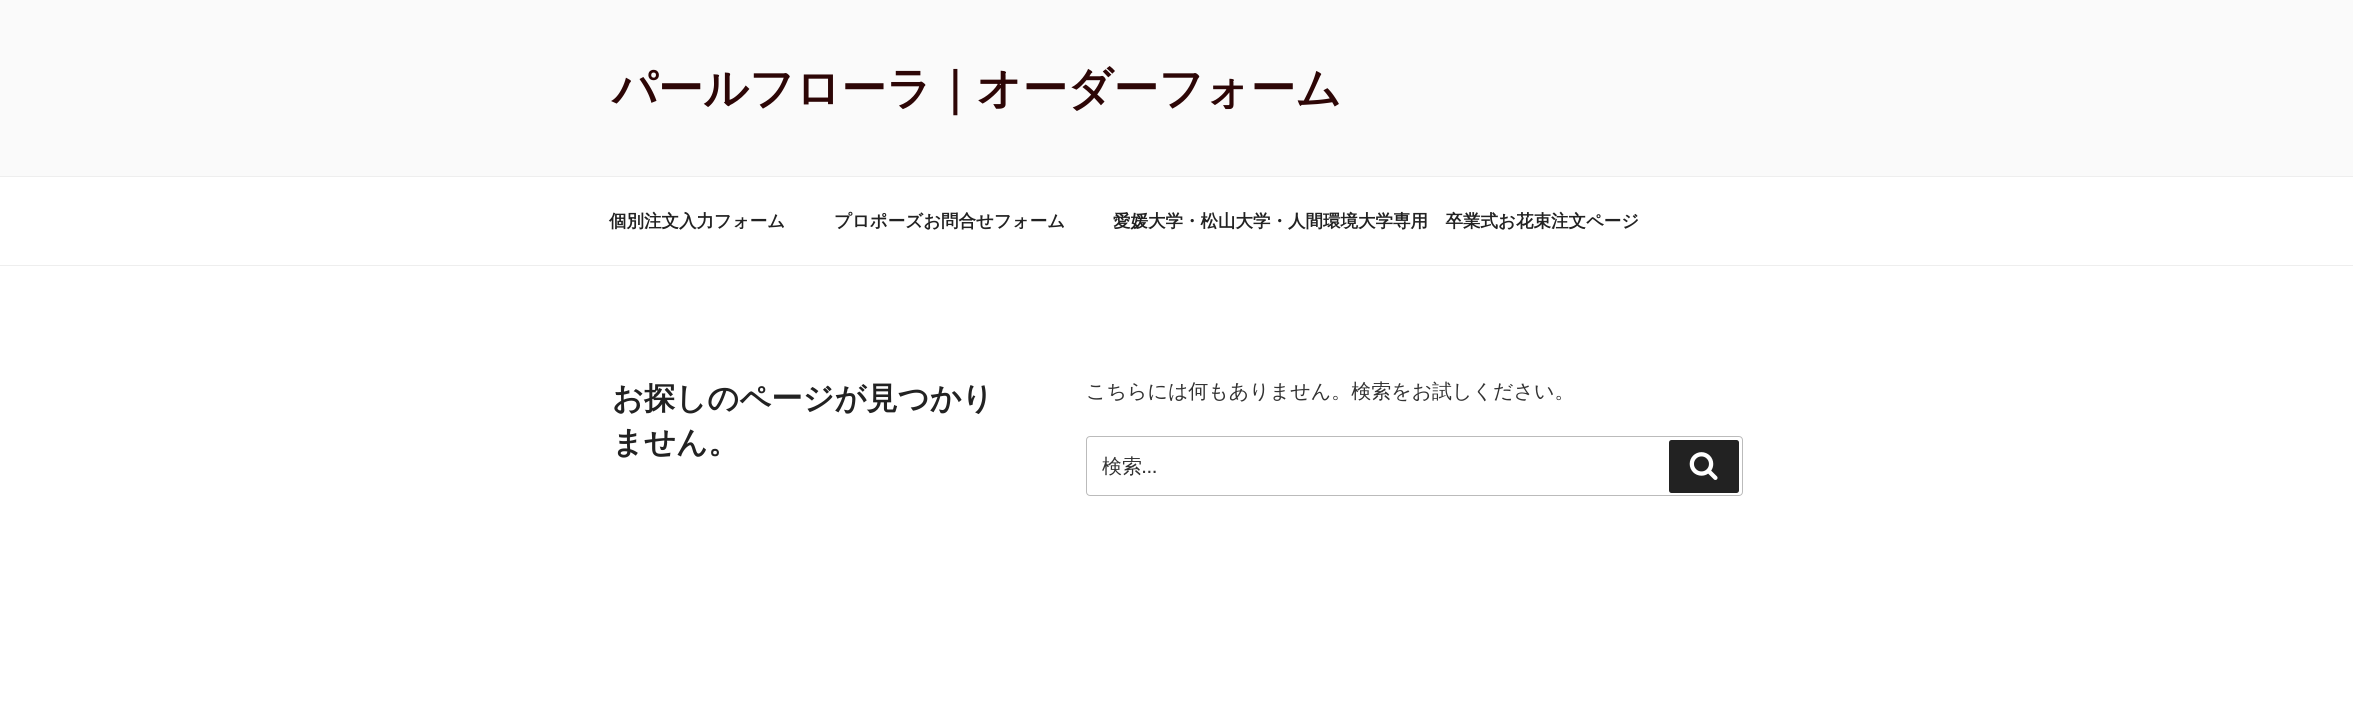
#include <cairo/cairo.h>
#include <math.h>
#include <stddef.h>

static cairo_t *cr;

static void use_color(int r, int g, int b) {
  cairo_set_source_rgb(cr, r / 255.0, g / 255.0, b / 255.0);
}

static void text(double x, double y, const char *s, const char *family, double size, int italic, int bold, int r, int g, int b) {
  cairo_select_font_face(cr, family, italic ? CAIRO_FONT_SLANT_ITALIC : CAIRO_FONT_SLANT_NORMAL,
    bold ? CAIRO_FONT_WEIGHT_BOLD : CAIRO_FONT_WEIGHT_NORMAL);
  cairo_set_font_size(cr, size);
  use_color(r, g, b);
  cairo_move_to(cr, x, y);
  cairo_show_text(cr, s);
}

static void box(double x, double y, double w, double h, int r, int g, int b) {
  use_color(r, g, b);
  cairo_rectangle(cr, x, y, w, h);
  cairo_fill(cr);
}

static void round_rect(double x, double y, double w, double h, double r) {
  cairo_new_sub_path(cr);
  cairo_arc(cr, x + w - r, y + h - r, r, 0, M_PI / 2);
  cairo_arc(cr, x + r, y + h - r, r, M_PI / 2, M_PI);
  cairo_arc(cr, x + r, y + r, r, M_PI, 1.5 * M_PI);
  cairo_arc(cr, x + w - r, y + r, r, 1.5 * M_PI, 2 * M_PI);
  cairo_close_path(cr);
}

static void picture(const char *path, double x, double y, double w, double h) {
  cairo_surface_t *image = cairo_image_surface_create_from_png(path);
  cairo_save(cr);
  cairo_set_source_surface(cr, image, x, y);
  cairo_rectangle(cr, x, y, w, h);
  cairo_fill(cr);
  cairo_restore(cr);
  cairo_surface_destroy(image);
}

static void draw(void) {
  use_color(255, 255, 255);
  cairo_paint(cr);
  box(0, 0, 2353, 176, 250, 250, 250);
  box(0, 176, 2353, 1, 238, 238, 238);
  box(0, 265, 2353, 1, 238, 238, 238);
  round_rect(1086.5, 436.5, 656, 59, 3.5);
  use_color(187, 187, 187);
  cairo_set_line_width(cr, 1);
  cairo_stroke(cr);
  use_color(34, 34, 34);
  round_rect(1669, 440, 70, 53, 2.5);
  cairo_fill(cr);
  picture("img_01.png", 1689, 452, 29, 28);
  text(612, 104, "パールフローラ｜オーダーフォーム", "WenQuanYi Zen Hei", 45, 0, 1, 45, 6, 6);
  text(609, 227, "個別注文入力フォーム", "WenQuanYi Zen Hei", 17.5, 0, 1, 34, 34, 34);
  text(834, 227, "プロポーズお問合せフォーム", "WenQuanYi Zen Hei", 17.5, 0, 1, 34, 34, 34);
  text(1113, 227, "愛媛大学・松山大学・人間環境大学専用　卒業式お花束注文ページ", "WenQuanYi Zen Hei", 17.5, 0, 1, 34, 34, 34);
  text(612, 409, "お探しのページが見つかり", "WenQuanYi Zen Hei", 31.25, 0, 1, 34, 34, 34);
  text(612, 453, "ません。", "WenQuanYi Zen Hei", 31.25, 0, 1, 34, 34, 34);
  text(1086, 398, "こちらには何もありません。検索をお試しください。", "WenQuanYi Zen Hei Medium", 20, 0, 0, 51, 51, 51);
  text(1102, 473, "検索", "WenQuanYi Zen Hei Medium", 20, 0, 0, 51, 51, 51);
  text(1142, 473, "…", "Libre Franklin", 20, 0, 0, 51, 51, 51);
}

int main(void) {
  cairo_surface_t *surface = cairo_image_surface_create(CAIRO_FORMAT_RGB24, 2353, 727);
  cr = cairo_create(surface);
  cairo_font_options_t *options = cairo_font_options_create();
  cairo_font_options_set_hint_metrics(options, CAIRO_HINT_METRICS_OFF);
  cairo_font_options_set_hint_style(options, CAIRO_HINT_STYLE_NONE);
  cairo_set_font_options(cr, options);
  cairo_set_miter_limit(cr, 4);
  draw();
  cairo_surface_write_to_png(surface, "out.png");
  cairo_font_options_destroy(options);
  cairo_destroy(cr);
  cairo_surface_destroy(surface);
  return 0;
}
